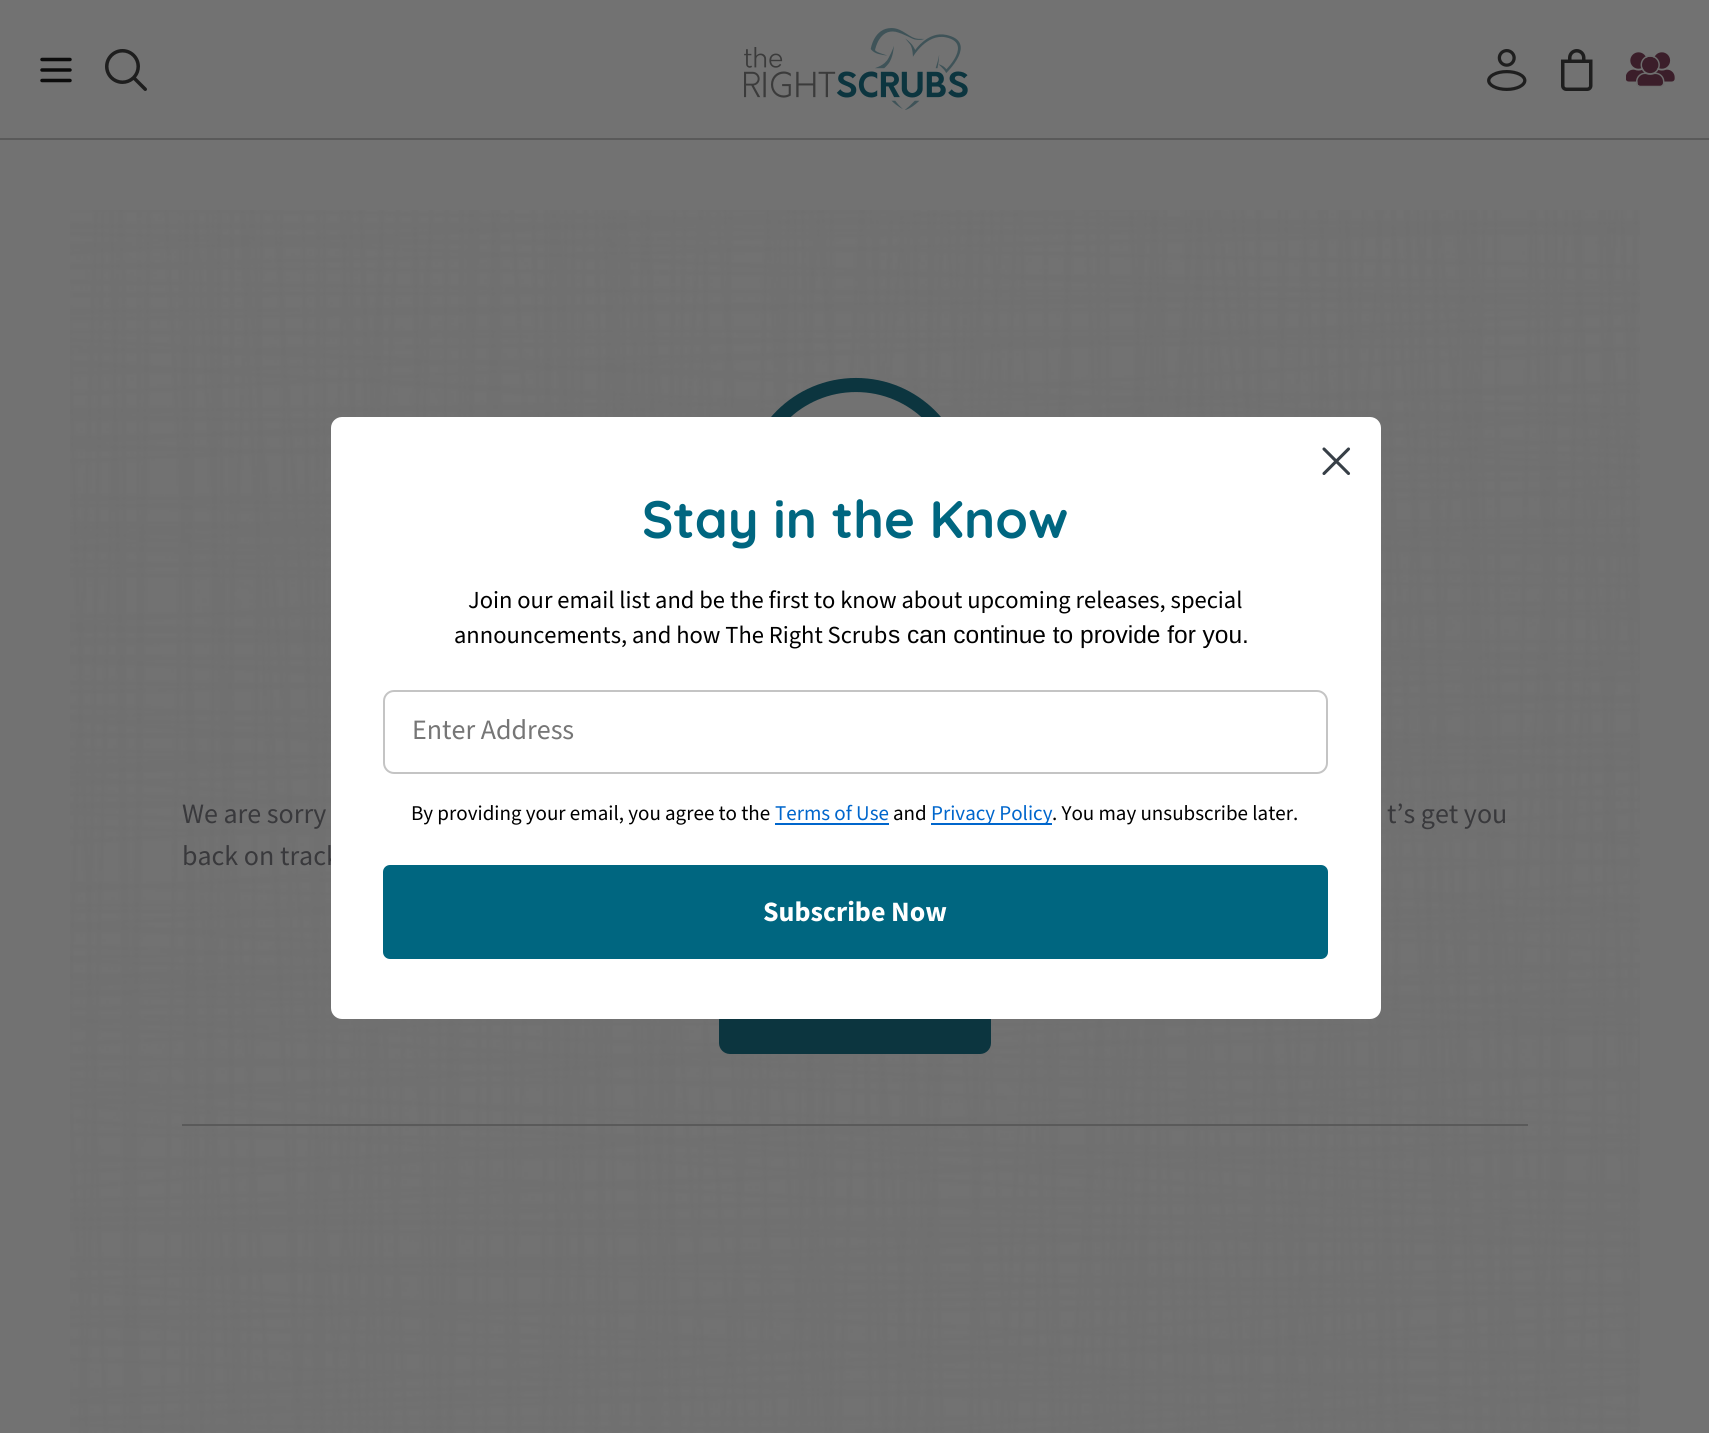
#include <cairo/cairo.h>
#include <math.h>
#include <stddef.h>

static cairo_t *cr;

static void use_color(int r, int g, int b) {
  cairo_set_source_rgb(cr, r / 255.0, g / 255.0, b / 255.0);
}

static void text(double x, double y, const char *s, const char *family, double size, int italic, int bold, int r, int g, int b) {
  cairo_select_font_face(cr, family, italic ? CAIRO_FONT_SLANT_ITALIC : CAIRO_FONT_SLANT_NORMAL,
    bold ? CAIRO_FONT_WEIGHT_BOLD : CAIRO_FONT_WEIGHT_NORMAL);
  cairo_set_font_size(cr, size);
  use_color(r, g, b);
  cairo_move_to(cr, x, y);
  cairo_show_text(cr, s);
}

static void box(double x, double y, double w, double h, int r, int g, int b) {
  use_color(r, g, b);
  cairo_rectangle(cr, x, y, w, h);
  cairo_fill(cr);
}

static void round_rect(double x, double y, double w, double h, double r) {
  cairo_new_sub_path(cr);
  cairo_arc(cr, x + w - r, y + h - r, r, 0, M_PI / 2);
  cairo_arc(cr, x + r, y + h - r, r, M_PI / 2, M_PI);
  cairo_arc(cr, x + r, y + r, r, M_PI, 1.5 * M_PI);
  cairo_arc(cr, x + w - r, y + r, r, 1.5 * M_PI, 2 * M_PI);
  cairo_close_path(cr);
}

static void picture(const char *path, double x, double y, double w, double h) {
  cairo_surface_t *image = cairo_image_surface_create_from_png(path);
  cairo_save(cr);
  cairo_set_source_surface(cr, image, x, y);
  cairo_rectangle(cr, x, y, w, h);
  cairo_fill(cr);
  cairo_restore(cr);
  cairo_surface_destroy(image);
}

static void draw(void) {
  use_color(114, 114, 114);
  cairo_paint(cr);
  box(0, 138, 1709, 2, 90, 90, 90);
  cairo_new_path(cr);
  cairo_move_to(cr, 42, 59.5);
  cairo_line_to(cr, 70, 59.5);
  cairo_move_to(cr, 42, 70);
  cairo_line_to(cr, 70, 70);
  cairo_move_to(cr, 42, 80.5);
  cairo_line_to(cr, 70, 80.5);
  use_color(12, 12, 12);
  cairo_set_line_width(cr, 3.5);
  cairo_set_line_cap(cr, CAIRO_LINE_CAP_ROUND);
  cairo_set_line_join(cr, CAIRO_LINE_JOIN_ROUND);
  cairo_stroke(cr);
  picture("img_01.png", 105, 49, 42, 42);
  picture("img_02.png", 744, 28, 224, 82);
  picture("img_03.png", 1487, 49, 40, 42);
  picture("img_04.png", 1561, 49, 32, 42);
  picture("img_05.png", 1626, 52, 49, 35);
  picture("img_06.png", 70, 210, 1570, 1223);
  box(182, 1124, 1346, 2, 90, 90, 90);
  use_color(114, 114, 114);
  cairo_arc(cr, 856, 490, 105, 0, 2 * M_PI);
  cairo_fill_preserve(cr);
  use_color(12, 53, 63);
  cairo_set_line_width(cr, 14.1);
  cairo_set_line_cap(cr, CAIRO_LINE_CAP_BUTT);
  cairo_set_line_join(cr, CAIRO_LINE_JOIN_MITER);
  cairo_stroke(cr);
  round_rect(719, 959, 272, 95, 11);
  cairo_fill(cr);
  text(182, 823, "We are sorry", "Source Sans Pro", 28, 0, 0, 57, 57, 60);
  text(1387, 823, "t’s get you", "Source Sans Pro", 28, 0, 0, 57, 57, 60);
  text(182, 865, "back on track", "Source Sans Pro", 28, 0, 0, 57, 57, 60);
  use_color(255, 255, 255);
  round_rect(331, 417, 1050, 602, 11);
  cairo_fill(cr);
  cairo_new_path(cr);
  cairo_move_to(cr, 1324, 449);
  cairo_line_to(cr, 1348.5, 473.5);
  cairo_move_to(cr, 1324, 473.5);
  cairo_line_to(cr, 1348.5, 449);
  cairo_close_path(cr);
  use_color(55, 63, 71);
  cairo_set_line_width(cr, 3.1);
  cairo_set_line_cap(cr, CAIRO_LINE_CAP_ROUND);
  cairo_set_line_join(cr, CAIRO_LINE_JOIN_ROUND);
  cairo_stroke(cr);
  use_color(0, 102, 128);
  round_rect(383, 865, 945, 94, 7);
  cairo_fill(cr);
  text(763, 921, "Subscribe Now", "Source Sans Pro", 28, 0, 1, 255, 255, 255);
  text(1052, 820, ". You may unsubscribe later.", "Source Sans 3", 21, 0, 0, 0, 0, 0);
  box(931, 823, 121, 2, 0, 102, 204);
  text(931, 820, "Privacy Policy", "Source Sans 3", 21, 0, 0, 0, 102, 204);
  text(893, 820, "and", "Source Sans 3", 21, 0, 0, 0, 0, 0);
  text(775, 820, "Terms of Use", "Source Sans 3", 21, 0, 0, 0, 102, 204);
  box(775, 823, 114, 2, 0, 102, 204);
  text(411, 820, "By providing your email, you agree to the", "Source Sans 3", 21, 0, 0, 0, 0, 0);
  round_rect(384, 691, 943, 82, 10);
  use_color(196, 196, 196);
  cairo_set_line_width(cr, 2);
  cairo_set_line_cap(cr, CAIRO_LINE_CAP_BUTT);
  cairo_set_line_join(cr, CAIRO_LINE_JOIN_MITER);
  cairo_stroke(cr);
  text(412, 739, "Enter Address", "Source Sans 3", 28, 0, 0, 118, 118, 118);
  text(888, 643, "s can continue to provide for you.", "Liberation Sans", 24.5, 0, 0, 0, 0, 0);
  text(454, 643, "announcements, and how The Right Scrub", "Source Sans 3", 24.5, 0, 0, 0, 0, 0);
  text(468, 608, "Join our email list and be the first to know about upcoming releases, special", "Source Sans 3", 24.5, 0, 0, 0, 0, 0);
  text(642, 538, "Stay in the Know", "Quicksand", 52.5, 0, 1, 0, 102, 128);
}

int main(void) {
  cairo_surface_t *surface = cairo_image_surface_create(CAIRO_FORMAT_RGB24, 1709, 1433);
  cr = cairo_create(surface);
  cairo_font_options_t *options = cairo_font_options_create();
  cairo_font_options_set_hint_metrics(options, CAIRO_HINT_METRICS_OFF);
  cairo_font_options_set_hint_style(options, CAIRO_HINT_STYLE_NONE);
  cairo_set_font_options(cr, options);
  cairo_set_miter_limit(cr, 4);
  draw();
  cairo_surface_write_to_png(surface, "out.png");
  cairo_font_options_destroy(options);
  cairo_destroy(cr);
  cairo_surface_destroy(surface);
  return 0;
}
